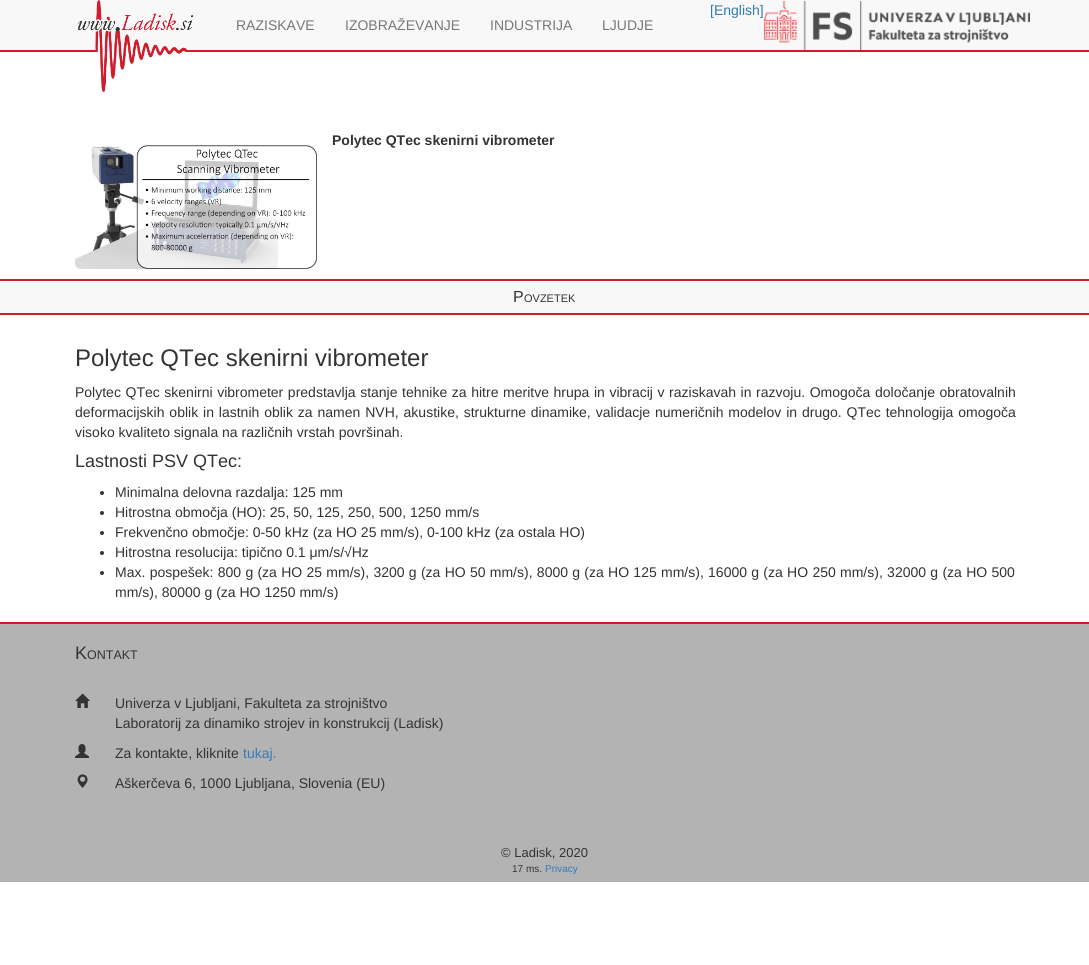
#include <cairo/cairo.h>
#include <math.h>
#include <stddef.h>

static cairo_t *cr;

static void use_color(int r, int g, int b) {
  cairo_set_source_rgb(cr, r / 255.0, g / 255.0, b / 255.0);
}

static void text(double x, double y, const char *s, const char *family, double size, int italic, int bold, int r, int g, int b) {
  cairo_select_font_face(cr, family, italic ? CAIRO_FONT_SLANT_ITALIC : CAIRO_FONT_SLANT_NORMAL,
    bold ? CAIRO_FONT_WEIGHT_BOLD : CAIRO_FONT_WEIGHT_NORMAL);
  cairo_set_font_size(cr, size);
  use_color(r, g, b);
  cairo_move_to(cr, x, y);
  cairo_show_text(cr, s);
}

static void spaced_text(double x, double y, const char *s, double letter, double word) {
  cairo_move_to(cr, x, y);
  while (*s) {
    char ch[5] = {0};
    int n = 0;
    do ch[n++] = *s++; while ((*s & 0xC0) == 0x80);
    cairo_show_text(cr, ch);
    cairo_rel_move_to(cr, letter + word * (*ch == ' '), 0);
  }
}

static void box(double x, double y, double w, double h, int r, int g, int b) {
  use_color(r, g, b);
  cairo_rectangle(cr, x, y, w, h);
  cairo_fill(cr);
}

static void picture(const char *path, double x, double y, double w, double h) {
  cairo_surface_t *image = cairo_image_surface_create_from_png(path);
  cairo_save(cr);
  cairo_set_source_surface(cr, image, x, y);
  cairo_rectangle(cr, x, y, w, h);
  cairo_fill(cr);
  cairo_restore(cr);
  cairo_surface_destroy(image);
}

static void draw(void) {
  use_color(255, 255, 255);
  cairo_paint(cr);
  box(0, 0, 1089, 50, 248, 248, 248);
  box(0, 50, 1089, 2, 207, 29, 45);
  picture("img_01.png", 78, 0, 115, 92);
  picture("img_02.png", 763, 1, 267, 50);
  picture("img_03.png", 75, 145, 242, 124);
  box(0, 281, 1089, 32, 248, 248, 248);
  box(0, 279, 1089, 2, 207, 29, 45);
  box(0, 313, 1089, 2, 207, 29, 45);
  use_color(51, 51, 51);
  cairo_arc(cr, 102, 493, 2, 0, 2 * M_PI);
  cairo_fill(cr);
  cairo_arc(cr, 102, 513, 2, 0, 2 * M_PI);
  cairo_fill(cr);
  cairo_arc(cr, 102, 533, 2, 0, 2 * M_PI);
  cairo_fill(cr);
  cairo_arc(cr, 102, 553, 2, 0, 2 * M_PI);
  cairo_fill(cr);
  cairo_arc(cr, 102, 573, 2, 0, 2 * M_PI);
  cairo_fill(cr);
  box(0, 624, 1089, 258, 179, 179, 179);
  box(0, 622, 1089, 2, 207, 29, 45);
  picture("img_04.png", 75, 693, 15, 15);
  picture("img_05.png", 75, 744, 14, 14);
  picture("img_06.png", 77, 774, 11, 14);
  text(710, 15, "[English]", "Liberation Sans", 14, 0, 0, 51, 122, 183);
  text(236, 30, "RAZISKAVE", "Liberation Sans", 14, 0, 0, 119, 119, 119);
  text(345, 30, "IZOBRAŽEVANJE", "Liberation Sans", 14, 0, 0, 119, 119, 119);
  text(490, 30, "INDUSTRIJA", "Liberation Sans", 14, 0, 0, 119, 119, 119);
  text(602, 30, "LJUDJE", "Liberation Sans", 14, 0, 0, 119, 119, 119);
  text(332, 145, "Polytec QTec skenirni vibrometer", "Liberation Sans", 14, 0, 1, 51, 51, 51);
  text(513, 302, "P", "Liberation Sans", 16, 0, 0, 51, 51, 51);
  text(524, 302, "OVZETEK", "Liberation Sans", 11, 0, 0, 51, 51, 51);
  text(75, 366, "Polytec QTec skenirni vibrometer", "Liberation Sans", 24, 0, 0, 51, 51, 51);
  cairo_set_font_size(cr, 14);
  spaced_text(75, 397, "Polytec QTec skenirni vibrometer predstavlja stanje tehnike za hitre meritve hrupa in vibracij v raziskavah in razvoju. Omogoča določanje obratovalnih", 0, 0.7);
  spaced_text(75, 417, "deformacijskih oblik in lastnih oblik za namen NVH, akustike, strukturne dinamike, validacje numeričnih modelov in drugo. QTec tehnologija omogoča", 0, 1);
  text(75, 437, "visoko kvaliteto signala na različnih vrstah površinah.", "Liberation Sans", 14, 0, 0, 51, 51, 51);
  text(75, 467, "Lastnosti PSV QTec:", "Liberation Sans", 18, 0, 0, 51, 51, 51);
  text(115, 497, "Minimalna delovna razdalja: 125 mm", "Liberation Sans", 14, 0, 0, 51, 51, 51);
  text(115, 517, "Hitrostna območja (HO): 25, 50, 125, 250, 500, 1250 mm/s", "Liberation Sans", 14, 0, 0, 51, 51, 51);
  text(115, 537, "Frekvenčno območje: 0-50 kHz (za HO 25 mm/s), 0-100 kHz (za ostala HO)", "Liberation Sans", 14, 0, 0, 51, 51, 51);
  text(115, 557, "Hitrostna resolucija: tipično 0.1 μm/s/√Hz", "Liberation Sans", 14, 0, 0, 51, 51, 51);
  spaced_text(115, 577, "Max. pospešek: 800 g (za HO 25 mm/s), 3200 g (za HO 50 mm/s), 8000 g (za HO 125 mm/s), 16000 g (za HO 250 mm/s), 32000 g (za HO 500", 0, 0.4);
  text(115, 597, "mm/s), 80000 g (za HO 1250 mm/s)", "Liberation Sans", 14, 0, 0, 51, 51, 51);
  text(75, 659, "K", "Liberation Sans", 18, 0, 0, 51, 51, 51);
  text(87, 659, "ONTAKT", "Liberation Sans", 12.5, 0, 0, 51, 51, 51);
  text(115, 708, "Univerza v Ljubljani, Fakulteta za strojništvo", "Liberation Sans", 14, 0, 0, 51, 51, 51);
  text(115, 728, "Laboratorij za dinamiko strojev in konstrukcij (Ladisk)", "Liberation Sans", 14, 0, 0, 51, 51, 51);
  text(115, 758, "Za kontakte, kliknite", "Liberation Sans", 14, 0, 0, 51, 51, 51);
  text(243, 758, "tukaj.", "Liberation Sans", 14, 0, 0, 51, 122, 183);
  text(115, 788, "Aškerčeva 6, 1000 Ljubljana, Slovenia (EU)", "Liberation Sans", 14, 0, 0, 51, 51, 51);
  text(501, 857, "© Ladisk, 2020", "Liberation Sans", 13, 0, 0, 51, 51, 51);
  text(512, 872, "17 ms.", "Liberation Sans", 10, 0, 0, 51, 51, 51);
  text(545, 872, "Privacy", "Liberation Sans", 10, 0, 0, 51, 122, 183);
}

int main(void) {
  cairo_surface_t *surface = cairo_image_surface_create(CAIRO_FORMAT_RGB24, 1089, 965);
  cr = cairo_create(surface);
  cairo_font_options_t *options = cairo_font_options_create();
  cairo_font_options_set_hint_metrics(options, CAIRO_HINT_METRICS_OFF);
  cairo_font_options_set_hint_style(options, CAIRO_HINT_STYLE_NONE);
  cairo_set_font_options(cr, options);
  cairo_set_miter_limit(cr, 4);
  draw();
  cairo_surface_write_to_png(surface, "out.png");
  cairo_font_options_destroy(options);
  cairo_destroy(cr);
  cairo_surface_destroy(surface);
  return 0;
}
